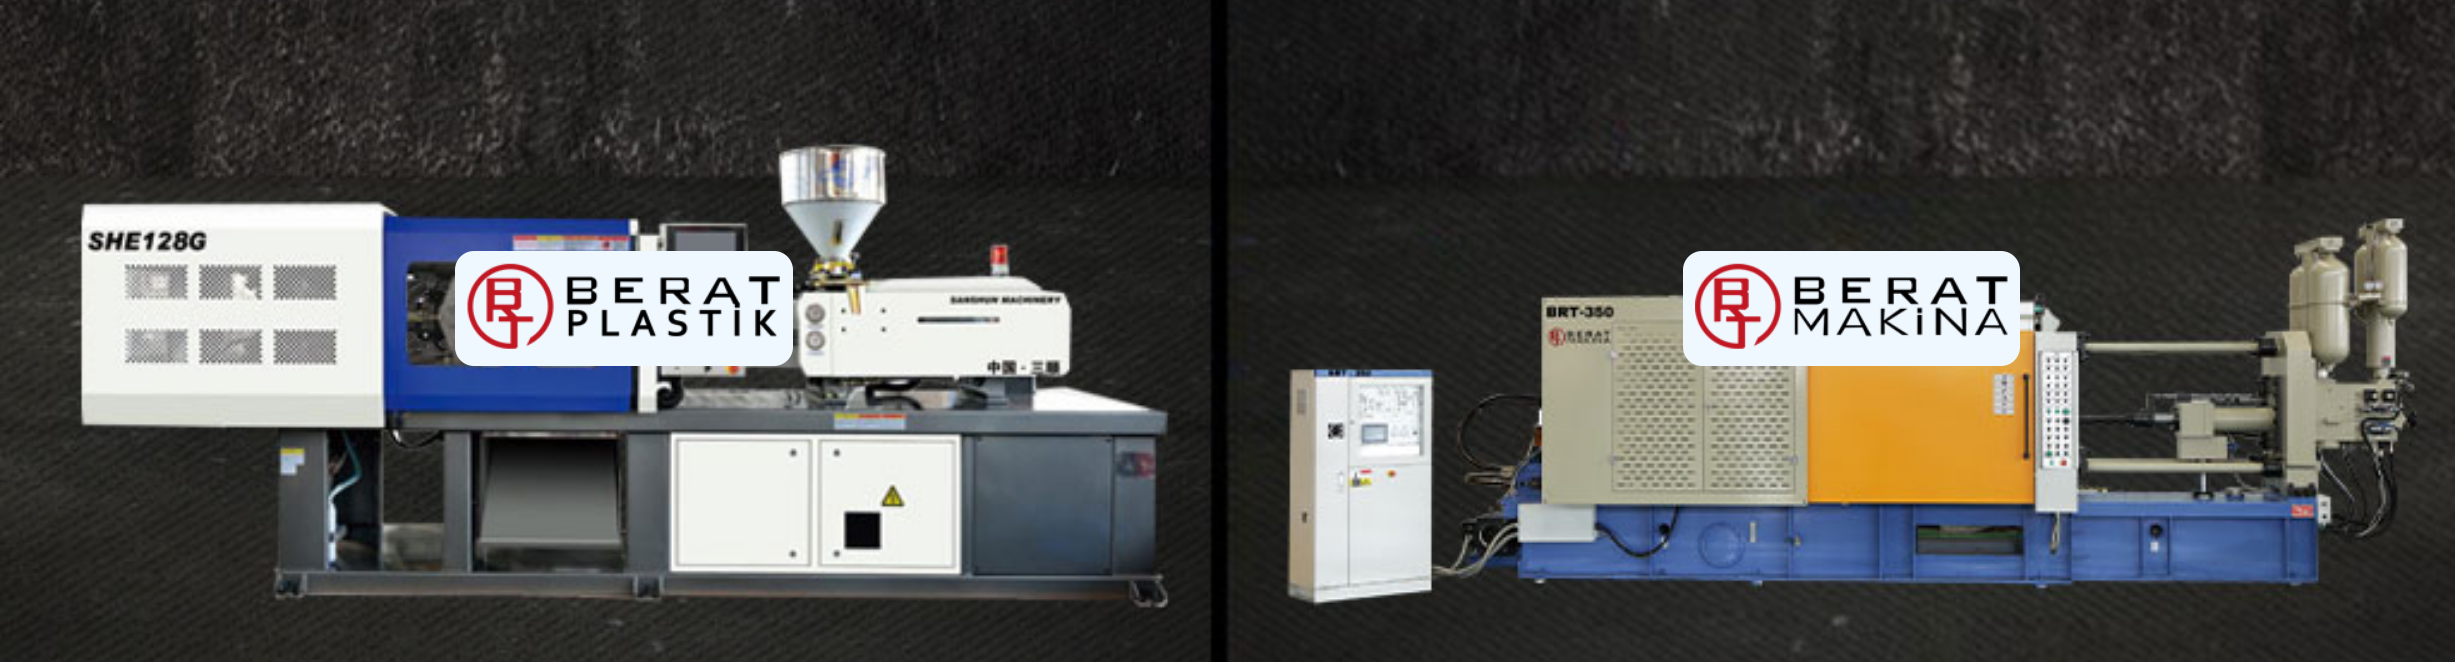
#include <cairo/cairo.h>
#include <math.h>
#include <stddef.h>

static cairo_t *cr;

static void use_color(int r, int g, int b) {
  cairo_set_source_rgb(cr, r / 255.0, g / 255.0, b / 255.0);
}

static void round_rect(double x, double y, double w, double h, double r) {
  cairo_new_sub_path(cr);
  cairo_arc(cr, x + w - r, y + h - r, r, 0, M_PI / 2);
  cairo_arc(cr, x + r, y + h - r, r, M_PI / 2, M_PI);
  cairo_arc(cr, x + r, y + r, r, M_PI, 1.5 * M_PI);
  cairo_arc(cr, x + w - r, y + r, r, 1.5 * M_PI, 2 * M_PI);
  cairo_close_path(cr);
}

static void picture(const char *path, double x, double y, double w, double h) {
  cairo_surface_t *image = cairo_image_surface_create_from_png(path);
  cairo_save(cr);
  cairo_set_source_surface(cr, image, x, y);
  cairo_rectangle(cr, x, y, w, h);
  cairo_fill(cr);
  cairo_restore(cr);
  cairo_surface_destroy(image);
}

static void draw(void) {
  use_color(255, 255, 255);
  cairo_paint(cr);
  picture("img_01.png", 0, 0, 2455, 662);
  use_color(240, 248, 255);
  round_rect(455, 251, 338, 115, 19);
  cairo_fill(cr);
  picture("img_02.png", 467, 263, 313, 86);
  round_rect(1683, 251, 337, 115, 19);
  cairo_fill(cr);
  picture("img_03.png", 1695, 263, 313, 86);
}

int main(void) {
  cairo_surface_t *surface = cairo_image_surface_create(CAIRO_FORMAT_RGB24, 2455, 662);
  cr = cairo_create(surface);
  cairo_font_options_t *options = cairo_font_options_create();
  cairo_font_options_set_hint_metrics(options, CAIRO_HINT_METRICS_OFF);
  cairo_font_options_set_hint_style(options, CAIRO_HINT_STYLE_NONE);
  cairo_set_font_options(cr, options);
  cairo_set_miter_limit(cr, 4);
  draw();
  cairo_surface_write_to_png(surface, "out.png");
  cairo_font_options_destroy(options);
  cairo_destroy(cr);
  cairo_surface_destroy(surface);
  return 0;
}
